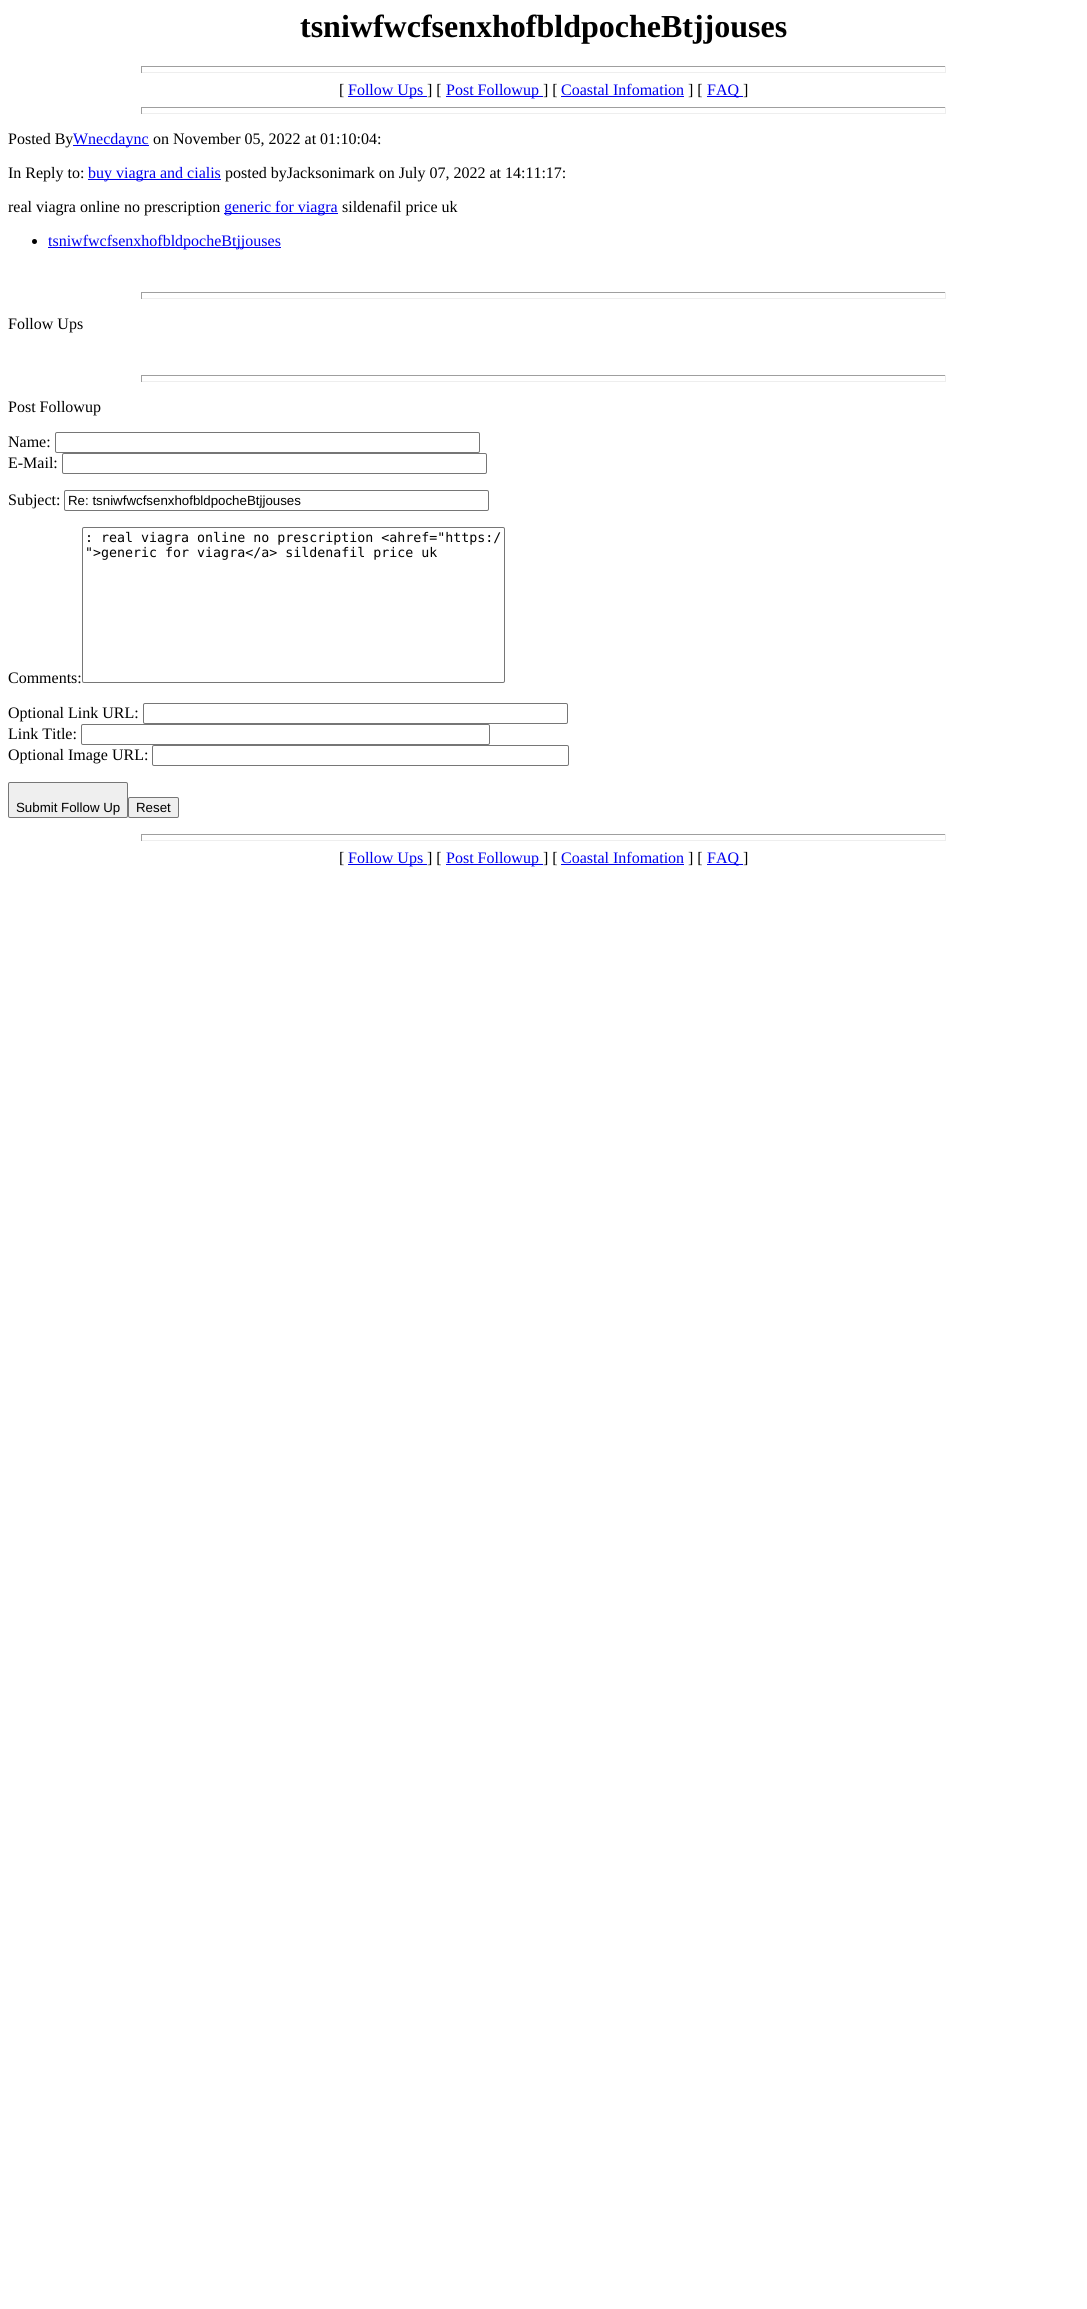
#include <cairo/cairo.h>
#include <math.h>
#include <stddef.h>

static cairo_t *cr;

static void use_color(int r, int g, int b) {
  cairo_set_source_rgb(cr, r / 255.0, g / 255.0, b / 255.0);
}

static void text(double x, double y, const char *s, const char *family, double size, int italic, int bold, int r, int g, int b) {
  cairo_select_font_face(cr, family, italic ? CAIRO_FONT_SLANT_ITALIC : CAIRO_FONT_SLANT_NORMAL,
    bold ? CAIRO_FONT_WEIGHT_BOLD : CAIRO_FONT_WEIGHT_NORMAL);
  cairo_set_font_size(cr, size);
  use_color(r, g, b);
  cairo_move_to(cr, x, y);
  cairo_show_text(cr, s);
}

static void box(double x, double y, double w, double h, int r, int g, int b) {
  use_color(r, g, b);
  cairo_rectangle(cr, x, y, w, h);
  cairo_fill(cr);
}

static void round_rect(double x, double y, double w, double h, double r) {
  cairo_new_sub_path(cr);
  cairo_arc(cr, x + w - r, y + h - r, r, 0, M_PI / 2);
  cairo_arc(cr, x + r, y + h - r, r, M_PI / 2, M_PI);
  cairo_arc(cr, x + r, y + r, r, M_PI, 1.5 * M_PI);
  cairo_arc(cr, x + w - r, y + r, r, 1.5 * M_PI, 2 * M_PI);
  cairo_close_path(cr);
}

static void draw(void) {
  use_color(255, 255, 255);
  cairo_paint(cr);
  box(141, 66, 805, 1, 159, 159, 159);
  box(945, 66, 1, 7, 238, 238, 238);
  box(141, 72, 805, 1, 238, 238, 238);
  box(141, 66, 1, 7, 159, 159, 159);
  box(348, 96, 79, 1, 0, 0, 238);
  box(446, 96, 97, 1, 0, 0, 238);
  box(561, 96, 123, 1, 0, 0, 238);
  box(707, 96, 36, 1, 0, 0, 238);
  box(141, 107, 805, 1, 159, 159, 159);
  box(945, 107, 1, 7, 238, 238, 238);
  box(141, 113, 805, 1, 238, 238, 238);
  box(141, 107, 1, 7, 159, 159, 159);
  box(88, 179, 133, 1, 0, 0, 238);
  box(224, 213, 114, 1, 0, 0, 238);
  use_color(0, 0, 0);
  cairo_arc(cr, 34.5, 241.5, 2.5, 0, 2 * M_PI);
  cairo_fill(cr);
  box(48, 247, 233, 1, 0, 0, 238);
  box(141, 292, 805, 1, 159, 159, 159);
  box(945, 292, 1, 7, 238, 238, 238);
  box(141, 298, 805, 1, 238, 238, 238);
  box(141, 292, 1, 7, 159, 159, 159);
  box(141, 375, 805, 1, 159, 159, 159);
  box(945, 375, 1, 7, 238, 238, 238);
  box(141, 381, 805, 1, 238, 238, 238);
  box(141, 375, 1, 7, 159, 159, 159);
  round_rect(55.5, 432.5, 424, 20, 1.5);
  use_color(118, 118, 118);
  cairo_set_line_width(cr, 1);
  cairo_stroke(cr);
  round_rect(62.5, 453.5, 424, 20, 1.5);
  cairo_stroke(cr);
  round_rect(64.5, 490.5, 424, 20, 1.5);
  cairo_stroke(cr);
  round_rect(82.5, 527.5, 422, 155, 1.5);
  cairo_stroke(cr);
  round_rect(143.5, 703.5, 424, 20, 1.5);
  cairo_stroke(cr);
  round_rect(81.5, 724.5, 408, 20, 1.5);
  cairo_stroke(cr);
  round_rect(152.5, 745.5, 416, 20, 1.5);
  cairo_stroke(cr);
  use_color(239, 239, 239);
  round_rect(8.5, 782.5, 119, 35, 1.5);
  cairo_fill_preserve(cr);
  use_color(118, 118, 118);
  cairo_stroke(cr);
  use_color(239, 239, 239);
  round_rect(128.5, 797.5, 50, 20, 1.5);
  cairo_fill_preserve(cr);
  use_color(118, 118, 118);
  cairo_stroke(cr);
  box(141, 834, 805, 1, 159, 159, 159);
  box(945, 834, 1, 7, 238, 238, 238);
  box(141, 840, 805, 1, 238, 238, 238);
  box(141, 834, 1, 7, 159, 159, 159);
  box(348, 864, 79, 1, 0, 0, 238);
  box(446, 864, 97, 1, 0, 0, 238);
  box(561, 864, 123, 1, 0, 0, 238);
  box(707, 864, 36, 1, 0, 0, 238);
  text(300, 37, "tsniwfwcfsenxhofbldpocheBtjjouses", "Liberation Serif", 32, 0, 1, 0, 0, 0);
  text(339, 95, "[", "Liberation Serif", 16, 0, 0, 0, 0, 0);
  text(348, 95, "Follow Ups", "Liberation Serif", 16, 0, 0, 0, 0, 238);
  text(427, 95, "] [", "Liberation Serif", 16, 0, 0, 0, 0, 0);
  text(446, 95, "Post Followup", "Liberation Serif", 16, 0, 0, 0, 0, 238);
  text(543, 95, "] [", "Liberation Serif", 16, 0, 0, 0, 0, 0);
  text(561, 95, "Coastal Infomation", "Liberation Serif", 16, 0, 0, 0, 0, 238);
  text(688, 95, "] [", "Liberation Serif", 16, 0, 0, 0, 0, 0);
  text(707, 95, "FAQ", "Liberation Serif", 16, 0, 0, 0, 0, 238);
  text(743, 95, "]", "Liberation Serif", 16, 0, 0, 0, 0, 0);
  text(8, 144, "Posted By", "Liberation Serif", 16, 0, 0, 0, 0, 0);
  box(73, 145, 76, 1, 0, 0, 238);
  text(73, 144, "Wnecdaync", "Liberation Serif", 16, 0, 0, 0, 0, 238);
  text(153, 144, "on November 05, 2022 at 01:10:04:", "Liberation Serif", 16, 0, 0, 0, 0, 0);
  text(8, 178, "In Reply to:", "Liberation Serif", 16, 0, 0, 0, 0, 0);
  text(88, 178, "buy viagra and cialis", "Liberation Serif", 16, 0, 0, 0, 0, 238);
  text(225, 178, "posted byJacksonimark on July 07, 2022 at 14:11:17:", "Liberation Serif", 16, 0, 0, 0, 0, 0);
  text(8, 212, "real viagra online no prescription", "Liberation Serif", 16, 0, 0, 0, 0, 0);
  text(224, 212, "generic for viagra", "Liberation Serif", 16, 0, 0, 0, 0, 238);
  text(342, 212, "sildenafil price uk", "Liberation Serif", 16, 0, 0, 0, 0, 0);
  text(48, 246, "tsniwfwcfsenxhofbldpocheBtjjouses", "Liberation Serif", 16, 0, 0, 0, 0, 238);
  text(8, 329, "Follow Ups", "Liberation Serif", 16, 0, 0, 0, 0, 0);
  text(8, 412, "Post Followup", "Liberation Serif", 16, 0, 0, 0, 0, 0);
  text(8, 447, "Name:", "Liberation Serif", 16, 0, 0, 0, 0, 0);
  text(8, 468, "E-Mail:", "Liberation Serif", 16, 0, 0, 0, 0, 0);
  text(8, 505, "Subject:", "Liberation Serif", 16, 0, 0, 0, 0, 0);
  text(68, 505, "Re: tsniwfwcfsenxhofbldpocheBtjjouses", "Liberation Sans", 13.3, 0, 0, 0, 0, 0);
  text(85, 542, ": real viagra online no prescription <ahref=\"https:/", "DejaVu Sans Mono", 13.3, 0, 0, 0, 0, 0);
  text(85, 557, "\">generic for viagra</a> sildenafil price uk", "DejaVu Sans Mono", 13.3, 0, 0, 0, 0, 0);
  text(8, 683, "Comments:", "Liberation Serif", 16, 0, 0, 0, 0, 0);
  text(8, 718, "Optional Link URL:", "Liberation Serif", 16, 0, 0, 0, 0, 0);
  text(8, 739, "Link Title:", "Liberation Serif", 16, 0, 0, 0, 0, 0);
  text(8, 760, "Optional Image URL:", "Liberation Serif", 16, 0, 0, 0, 0, 0);
  text(16, 812, "Submit Follow Up", "Liberation Sans", 13.3, 0, 0, 0, 0, 0);
  text(136, 812, "Reset", "Liberation Sans", 13.3, 0, 0, 0, 0, 0);
  text(339, 863, "[", "Liberation Serif", 16, 0, 0, 0, 0, 0);
  text(348, 863, "Follow Ups", "Liberation Serif", 16, 0, 0, 0, 0, 238);
  text(427, 863, "] [", "Liberation Serif", 16, 0, 0, 0, 0, 0);
  text(446, 863, "Post Followup", "Liberation Serif", 16, 0, 0, 0, 0, 238);
  text(543, 863, "] [", "Liberation Serif", 16, 0, 0, 0, 0, 0);
  text(561, 863, "Coastal Infomation", "Liberation Serif", 16, 0, 0, 0, 0, 238);
  text(688, 863, "] [", "Liberation Serif", 16, 0, 0, 0, 0, 0);
  text(707, 863, "FAQ", "Liberation Serif", 16, 0, 0, 0, 0, 238);
  text(743, 863, "]", "Liberation Serif", 16, 0, 0, 0, 0, 0);
}

int main(void) {
  cairo_surface_t *surface = cairo_image_surface_create(CAIRO_FORMAT_RGB24, 1087, 2309);
  cr = cairo_create(surface);
  cairo_font_options_t *options = cairo_font_options_create();
  cairo_font_options_set_hint_metrics(options, CAIRO_HINT_METRICS_OFF);
  cairo_font_options_set_hint_style(options, CAIRO_HINT_STYLE_NONE);
  cairo_set_font_options(cr, options);
  cairo_set_miter_limit(cr, 4);
  draw();
  cairo_surface_write_to_png(surface, "out.png");
  cairo_font_options_destroy(options);
  cairo_destroy(cr);
  cairo_surface_destroy(surface);
  return 0;
}
